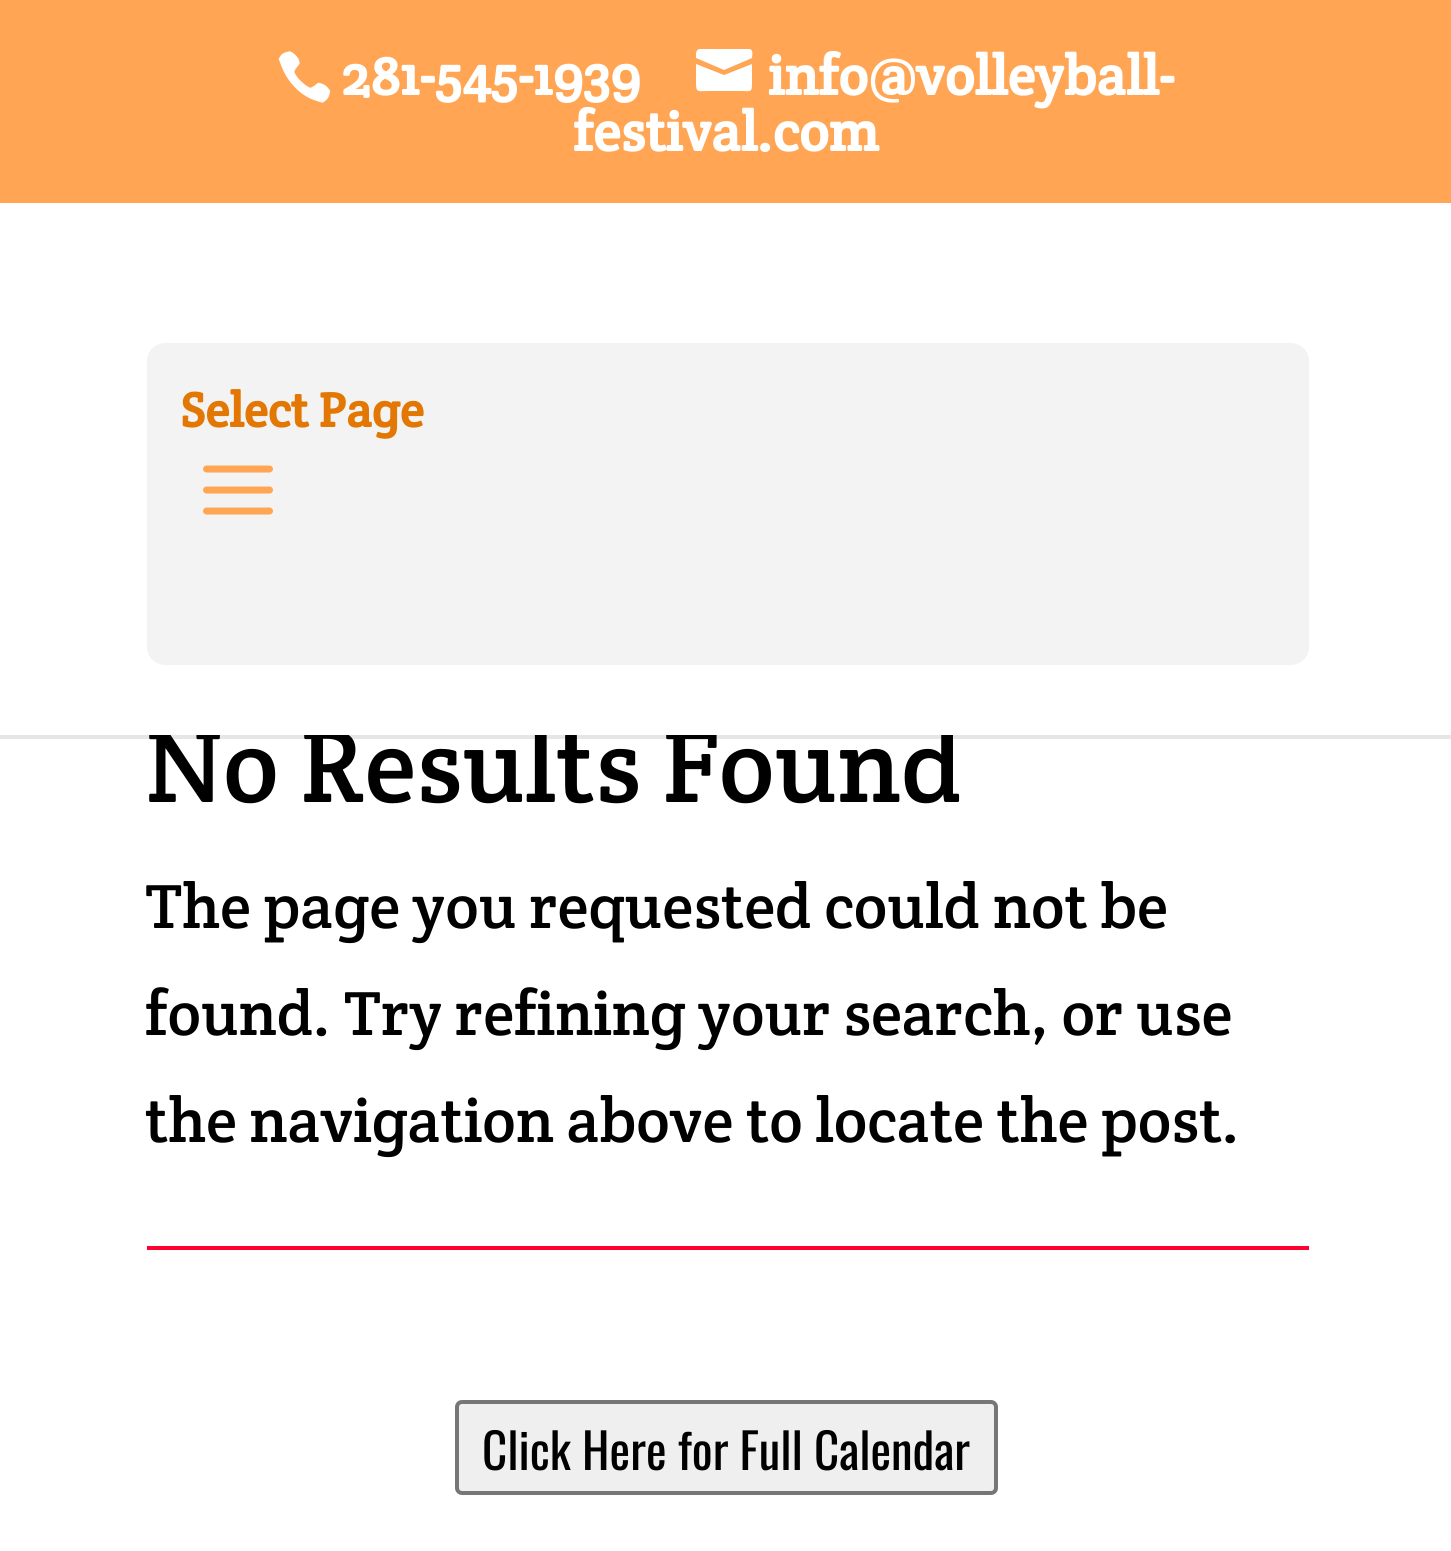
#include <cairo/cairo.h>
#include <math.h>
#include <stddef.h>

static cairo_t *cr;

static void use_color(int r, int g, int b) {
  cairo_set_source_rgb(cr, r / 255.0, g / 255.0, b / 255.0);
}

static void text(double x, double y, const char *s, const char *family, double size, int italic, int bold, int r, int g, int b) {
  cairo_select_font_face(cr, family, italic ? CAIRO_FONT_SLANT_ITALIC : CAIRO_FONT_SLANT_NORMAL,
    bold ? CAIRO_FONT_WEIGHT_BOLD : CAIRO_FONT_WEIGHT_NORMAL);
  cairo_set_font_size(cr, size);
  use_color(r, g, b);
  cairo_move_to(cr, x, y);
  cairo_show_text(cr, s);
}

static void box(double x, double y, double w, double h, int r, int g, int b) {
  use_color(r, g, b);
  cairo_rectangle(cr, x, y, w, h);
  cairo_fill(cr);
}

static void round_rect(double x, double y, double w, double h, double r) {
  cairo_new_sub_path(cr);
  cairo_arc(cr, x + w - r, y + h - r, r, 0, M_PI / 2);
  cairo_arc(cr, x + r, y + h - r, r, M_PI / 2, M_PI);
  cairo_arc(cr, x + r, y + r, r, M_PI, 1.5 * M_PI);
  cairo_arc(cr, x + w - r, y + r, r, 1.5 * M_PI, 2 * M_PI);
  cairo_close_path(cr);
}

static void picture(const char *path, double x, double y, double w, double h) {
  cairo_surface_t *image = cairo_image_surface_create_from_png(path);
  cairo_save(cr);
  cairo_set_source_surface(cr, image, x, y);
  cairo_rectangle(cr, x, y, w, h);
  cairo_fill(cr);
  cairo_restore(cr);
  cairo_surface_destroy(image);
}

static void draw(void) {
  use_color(255, 255, 255);
  cairo_paint(cr);
  box(0, 0, 1451, 203, 255, 165, 83);
  picture("img_01.png", 278, 51, 53, 52);
  use_color(255, 255, 255);
  cairo_new_path(cr);
  cairo_move_to(cr, 749, 49);
  cairo_line_to(cr, 700, 49);
  cairo_curve_to(cr, 695, 49, 696, 56, 696, 58);
  cairo_line_to(cr, 724, 70);
  cairo_line_to(cr, 752, 58);
  cairo_curve_to(cr, 752, 56, 754, 49, 749, 49);
  cairo_close_path(cr);
  cairo_move_to(cr, 696, 64);
  cairo_line_to(cr, 696, 84);
  cairo_curve_to(cr, 696, 93, 699, 91, 708, 91);
  cairo_line_to(cr, 741, 91);
  cairo_curve_to(cr, 750, 91, 752, 93, 752, 84);
  cairo_line_to(cr, 752, 64);
  cairo_line_to(cr, 724, 75);
  cairo_close_path(cr);
  cairo_fill(cr);
  cairo_set_source_rgba(cr, 0, 0, 0, 0.1);
  cairo_new_path(cr);
  cairo_move_to(cr, 0, 735);
  cairo_line_to(cr, 0, 739);
  cairo_line_to(cr, 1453, 739);
  cairo_line_to(cr, 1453, 207);
  cairo_line_to(cr, 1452, 207);
  cairo_line_to(cr, 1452, 735);
  cairo_close_path(cr);
  cairo_fill(cr);
  use_color(243, 243, 243);
  round_rect(147, 343, 1162, 322, 18);
  cairo_fill(cr);
  picture("img_02.png", 203, 465, 70, 50);
  box(147, 1246, 1162, 4, 255, 0, 48);
  use_color(239, 239, 239);
  round_rect(457, 1402, 539, 91, 5);
  cairo_fill_preserve(cr);
  use_color(118, 118, 118);
  cairo_set_line_width(cr, 4);
  cairo_stroke(cr);
  text(341, 95, "281-545-1939", "Crete Round", 56, 0, 1, 255, 255, 255);
  text(768, 95, "info@volleyball-", "Crete Round", 56, 0, 1, 255, 255, 255);
  text(573, 151, "festival.com", "Crete Round", 56, 0, 1, 255, 255, 255);
  text(180, 427, "Select Page", "Crete Round", 49, 0, 1, 226, 119, 3);
  text(145, 802, "No Results Found", "Crete Round", 105, 0, 0, 0, 0, 0);
  box(149, 723, 805, 12, 255, 255, 255);
  text(145, 928, "The page you requested could not be", "Crete Round", 63, 0, 0, 0, 0, 0);
  text(145, 1035, "found. Try refining your search, or use", "Crete Round", 63, 0, 0, 0, 0, 0);
  text(145, 1142, "the navigation above to locate the post.", "Crete Round", 63, 0, 0, 0, 0, 0);
  text(482, 1470, "Click Here for Full Calendar", "Oswald", 49, 0, 0, 0, 0, 0);
}

int main(void) {
  cairo_surface_t *surface = cairo_image_surface_create(CAIRO_FORMAT_RGB24, 1451, 1551);
  cr = cairo_create(surface);
  cairo_font_options_t *options = cairo_font_options_create();
  cairo_font_options_set_hint_metrics(options, CAIRO_HINT_METRICS_OFF);
  cairo_font_options_set_hint_style(options, CAIRO_HINT_STYLE_NONE);
  cairo_set_font_options(cr, options);
  cairo_set_miter_limit(cr, 4);
  draw();
  cairo_surface_write_to_png(surface, "out.png");
  cairo_font_options_destroy(options);
  cairo_destroy(cr);
  cairo_surface_destroy(surface);
  return 0;
}
